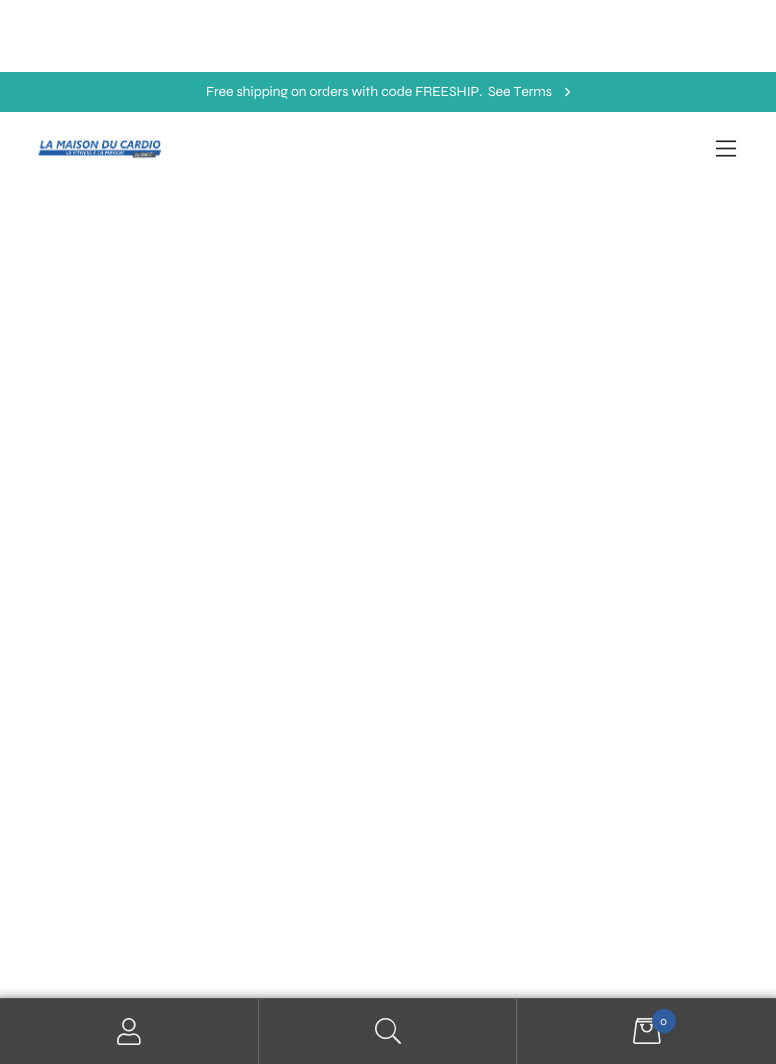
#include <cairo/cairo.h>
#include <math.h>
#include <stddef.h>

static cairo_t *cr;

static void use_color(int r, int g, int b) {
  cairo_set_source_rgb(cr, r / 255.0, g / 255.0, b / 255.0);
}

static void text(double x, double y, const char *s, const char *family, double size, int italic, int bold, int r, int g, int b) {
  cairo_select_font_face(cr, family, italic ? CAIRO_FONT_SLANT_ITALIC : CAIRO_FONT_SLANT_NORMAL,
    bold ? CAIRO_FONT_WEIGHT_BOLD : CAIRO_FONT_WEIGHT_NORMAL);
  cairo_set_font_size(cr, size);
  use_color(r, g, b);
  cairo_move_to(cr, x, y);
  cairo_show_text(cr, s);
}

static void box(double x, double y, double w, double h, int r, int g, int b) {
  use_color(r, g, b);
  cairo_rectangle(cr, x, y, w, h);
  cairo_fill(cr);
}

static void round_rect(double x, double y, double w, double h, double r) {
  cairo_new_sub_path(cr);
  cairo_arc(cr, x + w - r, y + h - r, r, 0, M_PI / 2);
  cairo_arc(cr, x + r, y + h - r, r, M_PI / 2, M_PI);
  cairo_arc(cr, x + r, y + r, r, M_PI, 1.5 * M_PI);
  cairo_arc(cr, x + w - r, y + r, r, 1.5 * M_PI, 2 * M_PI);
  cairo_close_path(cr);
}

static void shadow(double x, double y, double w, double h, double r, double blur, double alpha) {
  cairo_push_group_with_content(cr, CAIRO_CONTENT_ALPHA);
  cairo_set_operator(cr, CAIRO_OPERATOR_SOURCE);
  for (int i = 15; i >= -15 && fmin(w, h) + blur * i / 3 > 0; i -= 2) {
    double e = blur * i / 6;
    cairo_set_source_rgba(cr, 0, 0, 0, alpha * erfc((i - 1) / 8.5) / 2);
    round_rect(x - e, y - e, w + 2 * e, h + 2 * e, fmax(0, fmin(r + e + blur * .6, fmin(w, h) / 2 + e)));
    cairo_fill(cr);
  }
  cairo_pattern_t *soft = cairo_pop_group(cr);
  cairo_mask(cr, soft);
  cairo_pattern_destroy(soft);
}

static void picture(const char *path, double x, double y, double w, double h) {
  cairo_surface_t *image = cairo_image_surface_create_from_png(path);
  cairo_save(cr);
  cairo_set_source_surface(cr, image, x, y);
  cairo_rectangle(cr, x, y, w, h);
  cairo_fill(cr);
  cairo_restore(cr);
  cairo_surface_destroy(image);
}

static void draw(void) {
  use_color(255, 255, 255);
  cairo_paint(cr);
  box(0, 72, 776, 40, 41, 171, 164);
  picture("img_01.png", 565, 87, 6, 10);
  picture("img_02.png", 37, 139, 125, 20);
  picture("img_03.png", 716, 140, 21, 17);
  use_color(0, 0, 0);
  shadow(0, 998, 776, 66, 0, 5, 0.5);
  box(0, 998, 776, 1, 87, 87, 87);
  box(0, 999, 258, 65, 68, 68, 68);
  box(258, 999, 1, 65, 105, 105, 105);
  picture("img_04.png", 117, 1018, 24, 27);
  box(259, 999, 257, 65, 68, 68, 68);
  box(516, 999, 1, 65, 105, 105, 105);
  picture("img_05.png", 375, 1018, 26, 26);
  box(517, 999, 259, 65, 68, 68, 68);
  picture("img_06.png", 633, 1018, 28, 26);
  use_color(48, 93, 160);
  cairo_arc(cr, 664, 1021, 12, 0, 2 * M_PI);
  cairo_fill(cr);
  text(206, 96, "Free shipping on orders with code FREESHIP.", "Syne", 14, 0, 0, 255, 255, 255);
  text(488, 96, "See Terms", "Syne", 14, 0, 0, 255, 255, 255);
  text(660, 1025, "0", "Syne", 12, 0, 0, 243, 243, 243);
}

int main(void) {
  cairo_surface_t *surface = cairo_image_surface_create(CAIRO_FORMAT_RGB24, 776, 1064);
  cr = cairo_create(surface);
  cairo_font_options_t *options = cairo_font_options_create();
  cairo_font_options_set_hint_metrics(options, CAIRO_HINT_METRICS_OFF);
  cairo_font_options_set_hint_style(options, CAIRO_HINT_STYLE_NONE);
  cairo_set_font_options(cr, options);
  cairo_set_miter_limit(cr, 4);
  draw();
  cairo_surface_write_to_png(surface, "out.png");
  cairo_font_options_destroy(options);
  cairo_destroy(cr);
  cairo_surface_destroy(surface);
  return 0;
}
